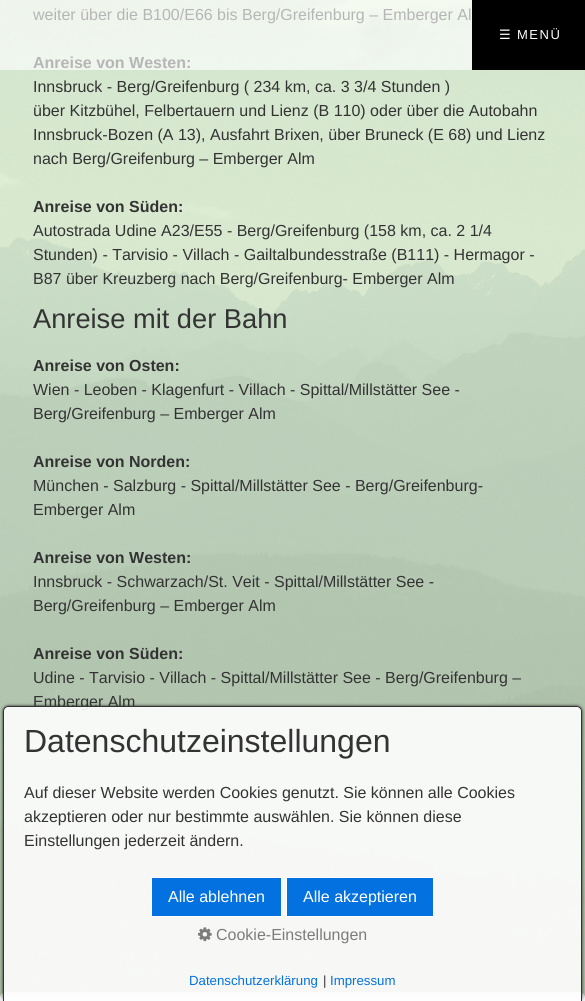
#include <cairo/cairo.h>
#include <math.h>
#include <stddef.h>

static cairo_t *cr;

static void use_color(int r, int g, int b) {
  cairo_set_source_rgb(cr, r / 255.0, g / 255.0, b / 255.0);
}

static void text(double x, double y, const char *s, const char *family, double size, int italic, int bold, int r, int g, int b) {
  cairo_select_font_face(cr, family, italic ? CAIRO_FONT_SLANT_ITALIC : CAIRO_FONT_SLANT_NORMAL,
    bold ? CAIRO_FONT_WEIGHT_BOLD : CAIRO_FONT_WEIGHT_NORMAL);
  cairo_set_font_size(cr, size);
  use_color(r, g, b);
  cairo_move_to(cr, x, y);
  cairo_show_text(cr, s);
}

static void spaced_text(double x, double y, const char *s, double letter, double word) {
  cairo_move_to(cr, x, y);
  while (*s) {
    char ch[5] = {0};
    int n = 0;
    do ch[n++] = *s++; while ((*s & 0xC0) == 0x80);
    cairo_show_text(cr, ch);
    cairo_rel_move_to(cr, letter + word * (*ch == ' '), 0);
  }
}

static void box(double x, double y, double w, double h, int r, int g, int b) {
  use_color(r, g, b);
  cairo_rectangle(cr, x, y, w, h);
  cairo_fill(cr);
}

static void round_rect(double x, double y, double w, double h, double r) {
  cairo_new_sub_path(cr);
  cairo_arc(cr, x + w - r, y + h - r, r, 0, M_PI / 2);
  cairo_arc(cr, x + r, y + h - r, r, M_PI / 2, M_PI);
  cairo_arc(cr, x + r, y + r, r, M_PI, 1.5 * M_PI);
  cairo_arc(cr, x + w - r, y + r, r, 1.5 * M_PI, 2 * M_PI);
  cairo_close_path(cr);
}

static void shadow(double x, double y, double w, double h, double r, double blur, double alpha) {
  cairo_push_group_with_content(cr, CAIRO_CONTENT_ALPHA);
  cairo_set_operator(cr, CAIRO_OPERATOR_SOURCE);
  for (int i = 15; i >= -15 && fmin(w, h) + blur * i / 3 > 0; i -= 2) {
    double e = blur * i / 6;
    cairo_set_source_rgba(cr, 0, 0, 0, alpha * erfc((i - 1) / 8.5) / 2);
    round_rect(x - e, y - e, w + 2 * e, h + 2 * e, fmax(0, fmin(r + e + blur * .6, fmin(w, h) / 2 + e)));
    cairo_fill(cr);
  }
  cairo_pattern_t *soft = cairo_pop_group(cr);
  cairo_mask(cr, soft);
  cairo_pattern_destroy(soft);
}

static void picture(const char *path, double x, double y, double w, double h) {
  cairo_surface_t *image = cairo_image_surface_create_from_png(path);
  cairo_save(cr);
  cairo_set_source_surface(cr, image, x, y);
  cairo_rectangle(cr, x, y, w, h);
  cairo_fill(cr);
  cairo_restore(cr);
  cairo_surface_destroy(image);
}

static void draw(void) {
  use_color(255, 255, 255);
  cairo_paint(cr);
  picture("img_01.png", 0, 0, 585, 1001);
  cairo_set_source_rgba(cr, 1, 1, 1, 0.9);
  round_rect(3, 995, 579, 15, 3);
  cairo_fill_preserve(cr);
  use_color(238, 238, 240);
  cairo_set_line_width(cr, 6);
  cairo_stroke(cr);
  box(472, 0, 113, 70, 0, 0, 0);
  cairo_save(cr);
  cairo_set_fill_rule(cr, CAIRO_FILL_RULE_EVEN_ODD);
  cairo_new_path(cr);
  cairo_move_to(cr, 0, 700);
  cairo_line_to(cr, 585, 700);
  cairo_line_to(cr, 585, 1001);
  cairo_line_to(cr, 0, 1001);
  cairo_close_path(cr);
  cairo_move_to(cr, 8, 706);
  cairo_line_to(cr, 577, 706);
  cairo_curve_to(cr, 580, 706, 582, 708, 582, 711);
  cairo_line_to(cr, 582, 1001);
  cairo_line_to(cr, 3, 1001);
  cairo_line_to(cr, 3, 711);
  cairo_curve_to(cr, 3, 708, 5, 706, 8, 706);
  cairo_close_path(cr);
  cairo_clip(cr);
  use_color(0, 0, 0);
  shadow(3, 706, 579, 295, 5, 1.5, 0.8);
  cairo_restore(cr);
  text(33, 20, "weiter über die B100/E66 bis Berg/Greifenburg – Emberger Al", "Liberation Sans", 16, 0, 0, 51, 51, 51);
  text(33, 68, "Anreise von Westen:", "Liberation Sans", 16, 0, 1, 51, 51, 51);
  text(33, 92, "Innsbruck - Berg/Greifenburg ( 234 km, ca. 3 3/4 Stunden )", "Liberation Sans", 16, 0, 0, 51, 51, 51);
  text(33, 116, "über Kitzbühel, Felbertauern und Lienz (B 110) oder über die Autobahn", "Liberation Sans", 16, 0, 0, 51, 51, 51);
  text(33, 140, "Innsbruck-Bozen (A 13), Ausfahrt Brixen, über Bruneck (E 68) und Lienz", "Liberation Sans", 16, 0, 0, 51, 51, 51);
  text(33, 164, "nach Berg/Greifenburg – Emberger Alm", "Liberation Sans", 16, 0, 0, 51, 51, 51);
  text(33, 212, "Anreise von Süden:", "Liberation Sans", 16, 0, 1, 51, 51, 51);
  text(33, 236, "Autostrada Udine A23/E55 - Berg/Greifenburg (158 km, ca. 2 1/4", "Liberation Sans", 16, 0, 0, 51, 51, 51);
  text(33, 260, "Stunden) - Tarvisio - Villach - Gailtalbundesstraße (B111) - Hermagor -", "Liberation Sans", 16, 0, 0, 51, 51, 51);
  text(33, 284, "B87 über Kreuzberg nach Berg/Greifenburg- Emberger Alm", "Liberation Sans", 16, 0, 0, 51, 51, 51);
  text(33, 328, "Anreise mit der Bahn", "Liberation Sans", 27.25, 0, 0, 51, 51, 51);
  text(33, 371, "Anreise von Osten:", "Liberation Sans", 16, 0, 1, 51, 51, 51);
  text(33, 395, "Wien - Leoben - Klagenfurt - Villach - Spittal/Millstätter See -", "Liberation Sans", 16, 0, 0, 51, 51, 51);
  text(33, 419, "Berg/Greifenburg – Emberger Alm", "Liberation Sans", 16, 0, 0, 51, 51, 51);
  text(33, 467, "Anreise von Norden:", "Liberation Sans", 16, 0, 1, 51, 51, 51);
  text(33, 491, "München - Salzburg - Spittal/Millstätter See - Berg/Greifenburg-", "Liberation Sans", 16, 0, 0, 51, 51, 51);
  text(33, 515, "Emberger Alm", "Liberation Sans", 16, 0, 0, 51, 51, 51);
  text(33, 563, "Anreise von Westen:", "Liberation Sans", 16, 0, 1, 51, 51, 51);
  text(33, 587, "Innsbruck - Schwarzach/St. Veit - Spittal/Millstätter See -", "Liberation Sans", 16, 0, 0, 51, 51, 51);
  text(33, 611, "Berg/Greifenburg – Emberger Alm", "Liberation Sans", 16, 0, 0, 51, 51, 51);
  text(33, 659, "Anreise von Süden:", "Liberation Sans", 16, 0, 1, 51, 51, 51);
  text(33, 683, "Udine - Tarvisio - Villach - Spittal/Millstätter See - Berg/Greifenburg –", "Liberation Sans", 16, 0, 0, 51, 51, 51);
  text(33, 707, "Emberger Alm", "Liberation Sans", 16, 0, 0, 51, 51, 51);
  cairo_set_source_rgba(cr, 1, 1, 1, 0.4);
  cairo_rectangle(cr, 0, 0, 472, 70);
  cairo_fill(cr);
  cairo_rectangle(cr, 0, 0, 472, 70);
  cairo_fill(cr);
  cairo_select_font_face(cr, "DejaVu Sans", CAIRO_FONT_SLANT_NORMAL, CAIRO_FONT_WEIGHT_NORMAL);
  cairo_set_font_size(cr, 13);
  use_color(255, 255, 255);
  spaced_text(499, 39, "☰", 1.5, 0);
  cairo_select_font_face(cr, "Liberation Sans", CAIRO_FONT_SLANT_NORMAL, CAIRO_FONT_WEIGHT_NORMAL);
  spaced_text(517, 39, "MENÜ", 1.5, 0);
  cairo_set_source_rgba(cr, 1, 1, 1, 0.9);
  cairo_new_path(cr);
  cairo_move_to(cr, 8, 706);
  cairo_line_to(cr, 577, 706);
  cairo_curve_to(cr, 580, 706, 582, 708, 582, 711);
  cairo_line_to(cr, 582, 1001);
  cairo_line_to(cr, 3, 1001);
  cairo_line_to(cr, 3, 711);
  cairo_curve_to(cr, 3, 708, 5, 706, 8, 706);
  cairo_close_path(cr);
  cairo_fill(cr);
  use_color(51, 51, 51);
  cairo_set_fill_rule(cr, CAIRO_FILL_RULE_EVEN_ODD);
  cairo_new_path(cr);
  cairo_move_to(cr, 8, 706);
  cairo_line_to(cr, 577, 706);
  cairo_curve_to(cr, 580, 706, 582, 708, 582, 711);
  cairo_line_to(cr, 582, 1001);
  cairo_line_to(cr, 3, 1001);
  cairo_line_to(cr, 3, 711);
  cairo_curve_to(cr, 3, 708, 5, 706, 8, 706);
  cairo_close_path(cr);
  cairo_move_to(cr, 8, 707);
  cairo_line_to(cr, 577, 707);
  cairo_curve_to(cr, 579, 707, 581, 709, 581, 711);
  cairo_line_to(cr, 581, 1001);
  cairo_line_to(cr, 4, 1001);
  cairo_line_to(cr, 4, 711);
  cairo_curve_to(cr, 4, 709, 6, 707, 8, 707);
  cairo_close_path(cr);
  cairo_fill(cr);
  text(24, 752, "Datenschutzeinstellungen", "Liberation Sans", 32, 0, 0, 51, 51, 51);
  text(24, 798, "Auf dieser Website werden Cookies genutzt. Sie können alle Cookies", "Liberation Sans", 16, 0, 0, 51, 51, 51);
  text(24, 822, "akzeptieren oder nur bestimmte auswählen. Sie können diese", "Liberation Sans", 16, 0, 0, 51, 51, 51);
  text(24, 846, "Einstellungen jederzeit ändern.", "Liberation Sans", 16, 0, 0, 51, 51, 51);
  use_color(3, 113, 223);
  cairo_rectangle(cr, 151.5, 877.5, 130, 39);
  cairo_fill_preserve(cr);
  use_color(255, 255, 255);
  cairo_set_line_width(cr, 1);
  cairo_stroke(cr);
  text(168, 902, "Alle ablehnen", "Liberation Sans", 16, 0, 0, 255, 255, 255);
  use_color(3, 113, 223);
  cairo_rectangle(cr, 286.5, 877.5, 147, 39);
  cairo_fill_preserve(cr);
  use_color(255, 255, 255);
  cairo_stroke(cr);
  text(303, 902, "Alle akzeptieren", "Liberation Sans", 16, 0, 0, 255, 255, 255);
  picture("img_02.png", 198, 927, 14, 15);
  text(216, 940, "Cookie-Einstellungen", "Liberation Sans", 16, 0, 0, 124, 124, 124);
  text(189, 985, "Datenschutzerklärung", "Liberation Sans", 13.25, 0, 0, 3, 113, 223);
  text(323, 985, "|", "Liberation Sans", 13.25, 0, 0, 51, 51, 51);
  text(330, 985, "Impressum", "Liberation Sans", 13.25, 0, 0, 3, 113, 223);
}

int main(void) {
  cairo_surface_t *surface = cairo_image_surface_create(CAIRO_FORMAT_RGB24, 585, 1001);
  cr = cairo_create(surface);
  cairo_font_options_t *options = cairo_font_options_create();
  cairo_font_options_set_hint_metrics(options, CAIRO_HINT_METRICS_OFF);
  cairo_font_options_set_hint_style(options, CAIRO_HINT_STYLE_NONE);
  cairo_set_font_options(cr, options);
  cairo_set_miter_limit(cr, 4);
  draw();
  cairo_surface_write_to_png(surface, "out.png");
  cairo_font_options_destroy(options);
  cairo_destroy(cr);
  cairo_surface_destroy(surface);
  return 0;
}
